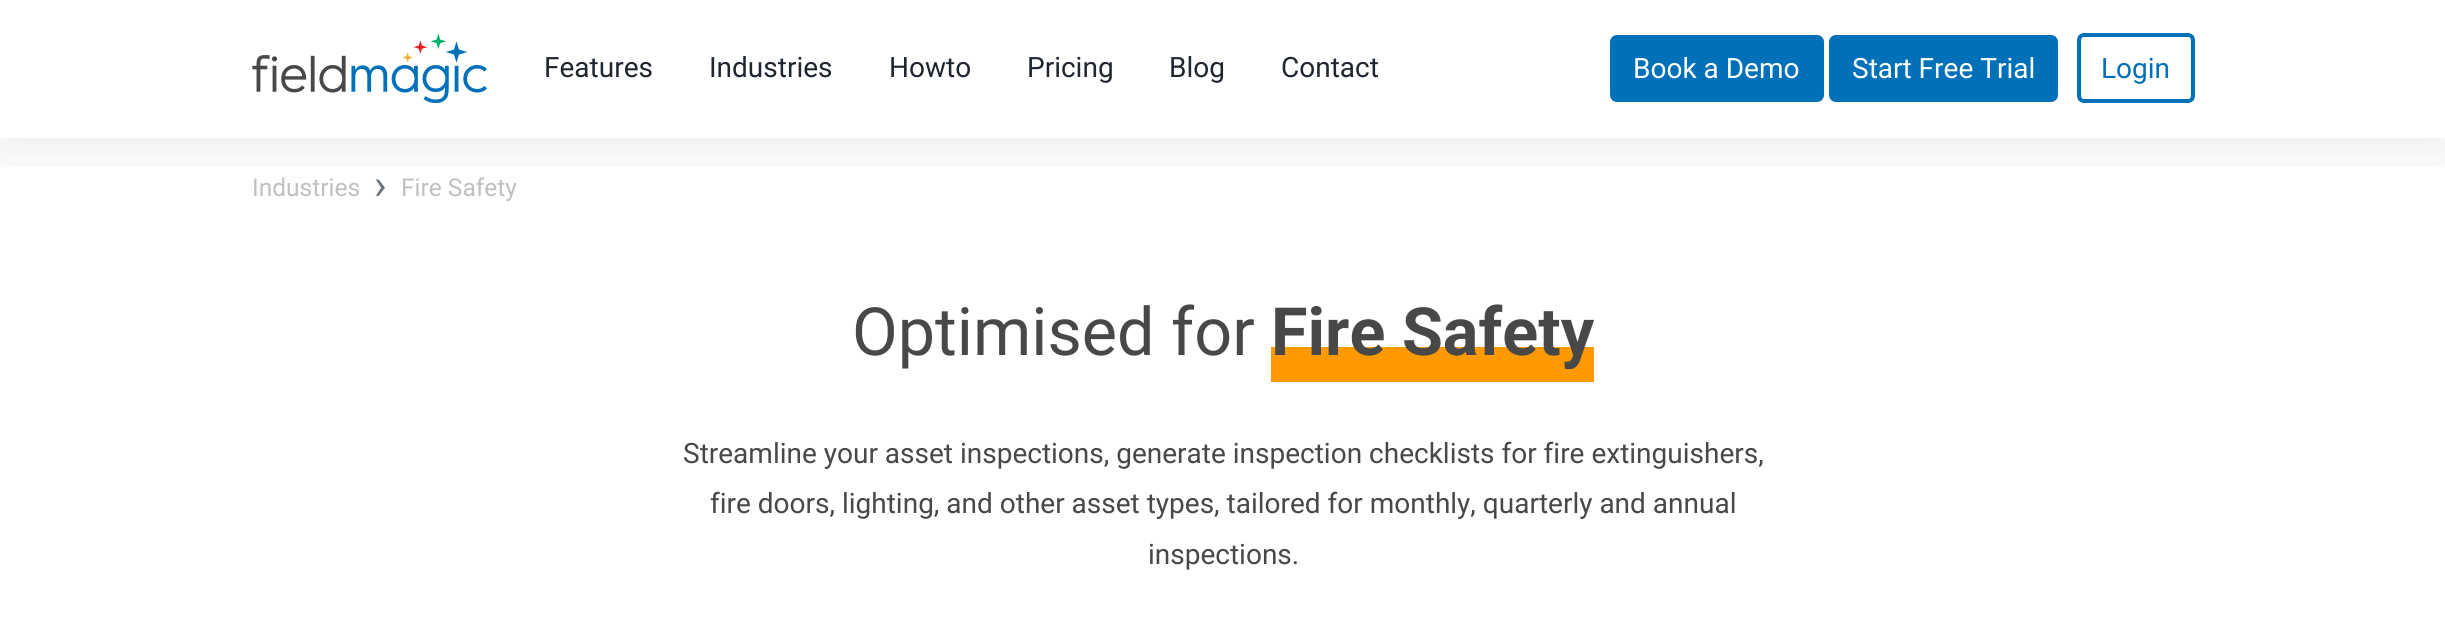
#include <cairo/cairo.h>
#include <math.h>
#include <stddef.h>

static cairo_t *cr;

static void use_color(int r, int g, int b) {
  cairo_set_source_rgb(cr, r / 255.0, g / 255.0, b / 255.0);
}

static void text(double x, double y, const char *s, const char *family, double size, int italic, int bold, int r, int g, int b) {
  cairo_select_font_face(cr, family, italic ? CAIRO_FONT_SLANT_ITALIC : CAIRO_FONT_SLANT_NORMAL,
    bold ? CAIRO_FONT_WEIGHT_BOLD : CAIRO_FONT_WEIGHT_NORMAL);
  cairo_set_font_size(cr, size);
  use_color(r, g, b);
  cairo_move_to(cr, x, y);
  cairo_show_text(cr, s);
}

static void box(double x, double y, double w, double h, int r, int g, int b) {
  use_color(r, g, b);
  cairo_rectangle(cr, x, y, w, h);
  cairo_fill(cr);
}

static void round_rect(double x, double y, double w, double h, double r) {
  cairo_new_sub_path(cr);
  cairo_arc(cr, x + w - r, y + h - r, r, 0, M_PI / 2);
  cairo_arc(cr, x + r, y + h - r, r, M_PI / 2, M_PI);
  cairo_arc(cr, x + r, y + r, r, M_PI, 1.5 * M_PI);
  cairo_arc(cr, x + w - r, y + r, r, 1.5 * M_PI, 2 * M_PI);
  cairo_close_path(cr);
}

static void shadow(double x, double y, double w, double h, double r, double blur, double alpha) {
  cairo_push_group_with_content(cr, CAIRO_CONTENT_ALPHA);
  cairo_set_operator(cr, CAIRO_OPERATOR_SOURCE);
  for (int i = 15; i >= -15 && fmin(w, h) + blur * i / 3 > 0; i -= 2) {
    double e = blur * i / 6;
    cairo_set_source_rgba(cr, 0, 0, 0, alpha * erfc((i - 1) / 8.5) / 2);
    round_rect(x - e, y - e, w + 2 * e, h + 2 * e, fmax(0, fmin(r + e + blur * .6, fmin(w, h) / 2 + e)));
    cairo_fill(cr);
  }
  cairo_pattern_t *soft = cairo_pop_group(cr);
  cairo_mask(cr, soft);
  cairo_pattern_destroy(soft);
}

static void picture(const char *path, double x, double y, double w, double h) {
  cairo_surface_t *image = cairo_image_surface_create_from_png(path);
  cairo_save(cr);
  cairo_set_source_surface(cr, image, x, y);
  cairo_rectangle(cr, x, y, w, h);
  cairo_fill(cr);
  cairo_restore(cr);
  cairo_surface_destroy(image);
}

static void draw(void) {
  use_color(255, 255, 255);
  cairo_paint(cr);
  cairo_save(cr);
  cairo_rectangle(cr, 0, 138, 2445, 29);
  cairo_clip(cr);
  use_color(0, 0, 0);
  shadow(0, 0, 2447, 138, 0, 35, 0.1);
  cairo_restore(cr);
  picture("img_01.png", 252, 33, 235, 70);
  use_color(0, 112, 185);
  round_rect(1611, 36, 212, 65, 6);
  cairo_fill_preserve(cr);
  cairo_stroke(cr);
  round_rect(1830, 36, 227, 65, 6);
  cairo_fill_preserve(cr);
  cairo_stroke(cr);
  round_rect(2079, 35, 114, 66, 5);
  cairo_set_line_width(cr, 4);
  cairo_stroke(cr);
  box(1271, 347, 323, 35, 255, 153, 0);
  text(544, 77, "Features", "Roboto", 28, 0, 0, 31, 38, 47);
  text(709, 77, "Industries", "Roboto", 28, 0, 0, 31, 38, 47);
  text(889, 77, "Howto", "Roboto", 28, 0, 0, 31, 38, 47);
  text(1027, 77, "Pricing", "Roboto", 28, 0, 0, 31, 38, 47);
  text(1169, 77, "Blog", "Roboto", 28, 0, 0, 31, 38, 47);
  text(1281, 77, "Contact", "Roboto", 28, 0, 0, 31, 38, 47);
  text(1633, 78, "Book a Demo", "Roboto", 28, 0, 0, 255, 255, 255);
  text(1852, 78, "Start Free Trial", "Roboto", 28, 0, 0, 255, 255, 255);
  text(2101, 78, "Login", "Roboto", 28, 0, 0, 0, 112, 185);
  text(252, 196, "Industries", "Roboto", 24.5, 0, 0, 191, 192, 195);
  text(374, 199, "›", "Roboto", 42, 0, 0, 108, 117, 125);
  text(401, 196, "Fire Safety", "Roboto", 24.5, 0, 0, 191, 192, 195);
  text(852, 355, "Optimised for", "Roboto", 66.5, 0, 0, 72, 72, 72);
  text(1271, 355, "Fire Safety", "Roboto", 66.5, 0, 1, 72, 72, 72);
  text(683, 463, "Streamline your asset inspections, generate inspection checklists for fire extinguishers,", "Roboto", 28, 0, 0, 72, 72, 72);
  text(710, 513, "fire doors, lighting, and other asset types, tailored for monthly, quarterly and annual", "Roboto", 28, 0, 0, 72, 72, 72);
  text(1148, 564, "inspections.", "Roboto", 28, 0, 0, 72, 72, 72);
}

int main(void) {
  cairo_surface_t *surface = cairo_image_surface_create(CAIRO_FORMAT_RGB24, 2445, 623);
  cr = cairo_create(surface);
  cairo_font_options_t *options = cairo_font_options_create();
  cairo_font_options_set_hint_metrics(options, CAIRO_HINT_METRICS_OFF);
  cairo_font_options_set_hint_style(options, CAIRO_HINT_STYLE_NONE);
  cairo_set_font_options(cr, options);
  cairo_set_miter_limit(cr, 4);
  draw();
  cairo_surface_write_to_png(surface, "out.png");
  cairo_font_options_destroy(options);
  cairo_destroy(cr);
  cairo_surface_destroy(surface);
  return 0;
}
